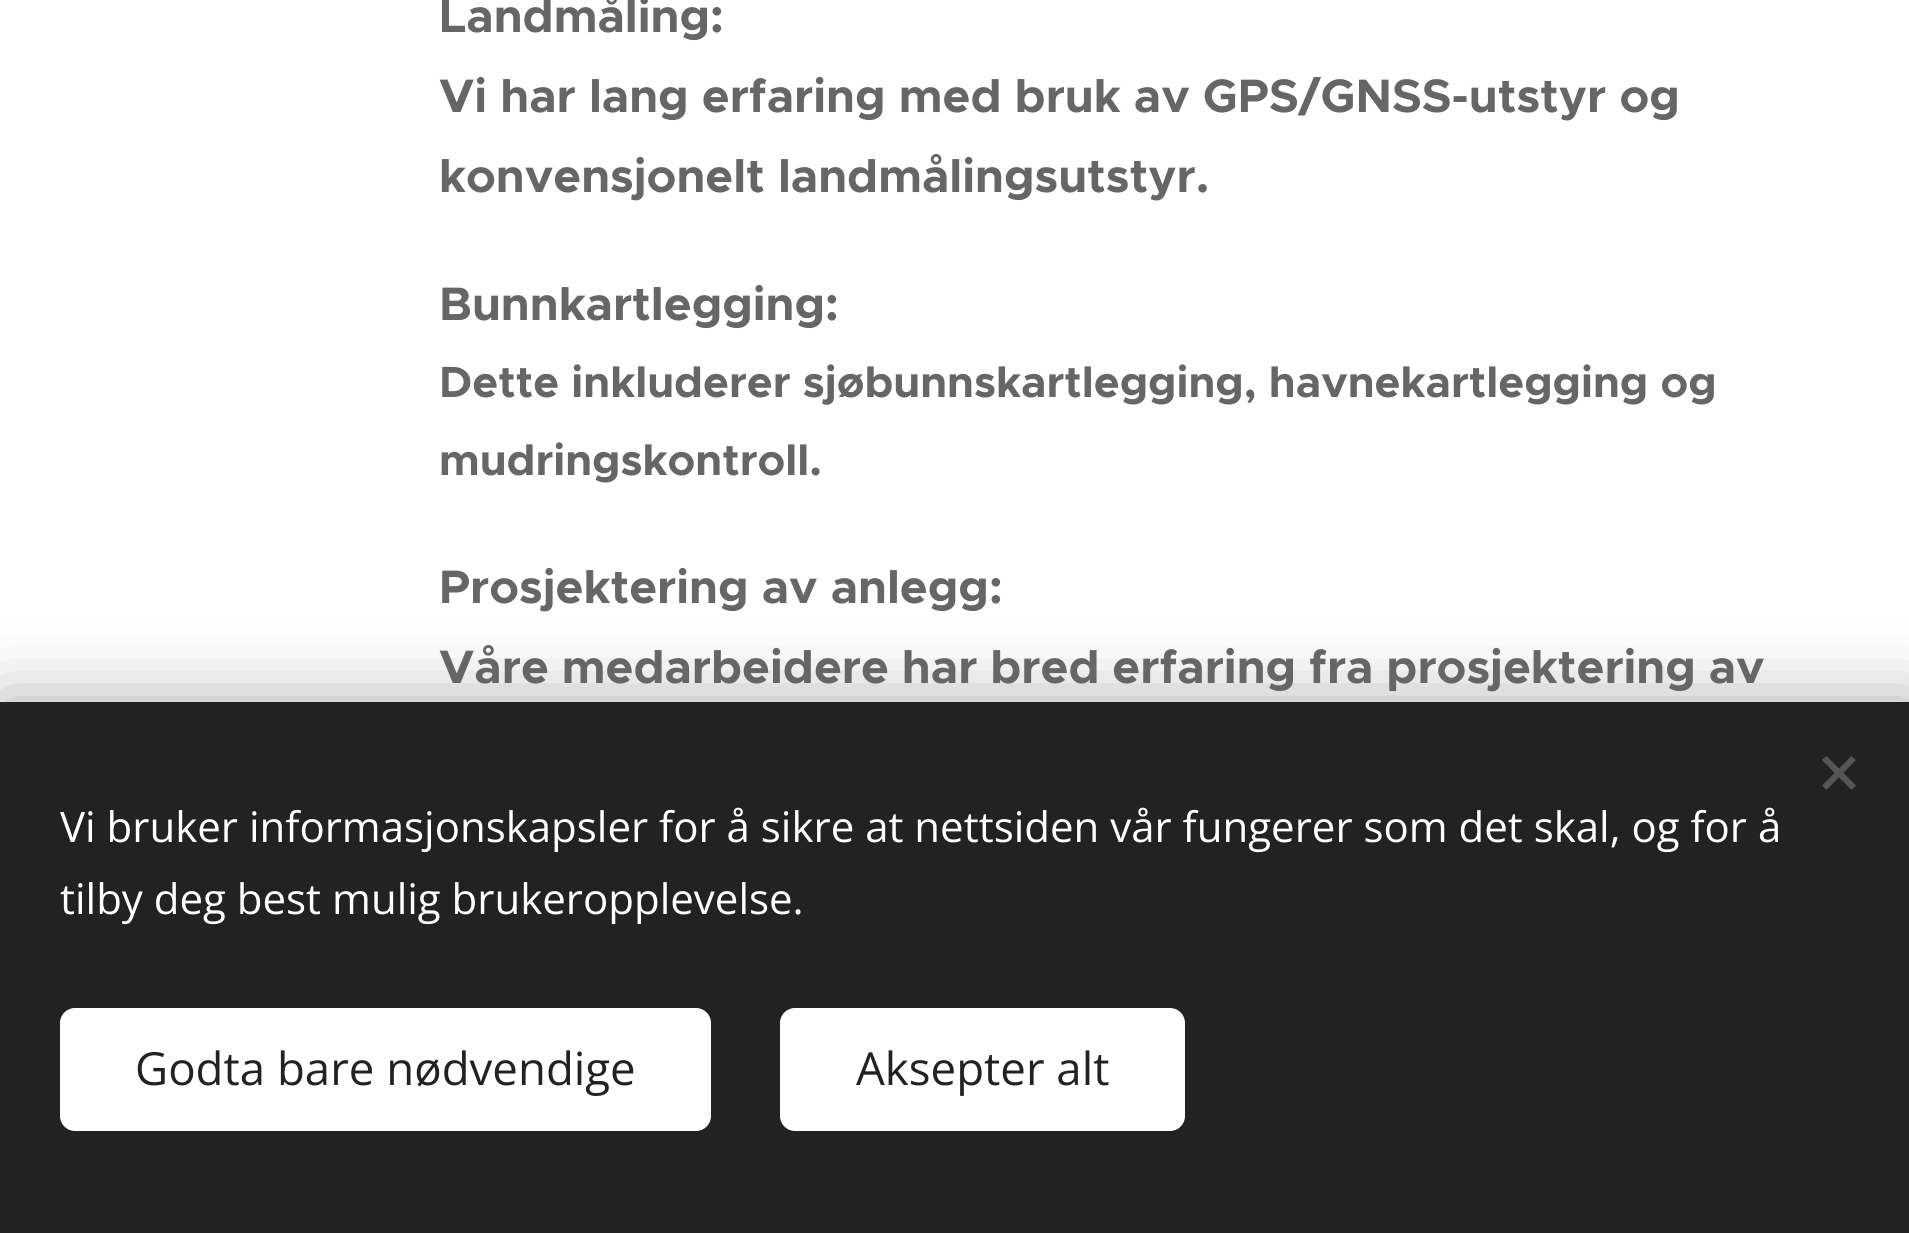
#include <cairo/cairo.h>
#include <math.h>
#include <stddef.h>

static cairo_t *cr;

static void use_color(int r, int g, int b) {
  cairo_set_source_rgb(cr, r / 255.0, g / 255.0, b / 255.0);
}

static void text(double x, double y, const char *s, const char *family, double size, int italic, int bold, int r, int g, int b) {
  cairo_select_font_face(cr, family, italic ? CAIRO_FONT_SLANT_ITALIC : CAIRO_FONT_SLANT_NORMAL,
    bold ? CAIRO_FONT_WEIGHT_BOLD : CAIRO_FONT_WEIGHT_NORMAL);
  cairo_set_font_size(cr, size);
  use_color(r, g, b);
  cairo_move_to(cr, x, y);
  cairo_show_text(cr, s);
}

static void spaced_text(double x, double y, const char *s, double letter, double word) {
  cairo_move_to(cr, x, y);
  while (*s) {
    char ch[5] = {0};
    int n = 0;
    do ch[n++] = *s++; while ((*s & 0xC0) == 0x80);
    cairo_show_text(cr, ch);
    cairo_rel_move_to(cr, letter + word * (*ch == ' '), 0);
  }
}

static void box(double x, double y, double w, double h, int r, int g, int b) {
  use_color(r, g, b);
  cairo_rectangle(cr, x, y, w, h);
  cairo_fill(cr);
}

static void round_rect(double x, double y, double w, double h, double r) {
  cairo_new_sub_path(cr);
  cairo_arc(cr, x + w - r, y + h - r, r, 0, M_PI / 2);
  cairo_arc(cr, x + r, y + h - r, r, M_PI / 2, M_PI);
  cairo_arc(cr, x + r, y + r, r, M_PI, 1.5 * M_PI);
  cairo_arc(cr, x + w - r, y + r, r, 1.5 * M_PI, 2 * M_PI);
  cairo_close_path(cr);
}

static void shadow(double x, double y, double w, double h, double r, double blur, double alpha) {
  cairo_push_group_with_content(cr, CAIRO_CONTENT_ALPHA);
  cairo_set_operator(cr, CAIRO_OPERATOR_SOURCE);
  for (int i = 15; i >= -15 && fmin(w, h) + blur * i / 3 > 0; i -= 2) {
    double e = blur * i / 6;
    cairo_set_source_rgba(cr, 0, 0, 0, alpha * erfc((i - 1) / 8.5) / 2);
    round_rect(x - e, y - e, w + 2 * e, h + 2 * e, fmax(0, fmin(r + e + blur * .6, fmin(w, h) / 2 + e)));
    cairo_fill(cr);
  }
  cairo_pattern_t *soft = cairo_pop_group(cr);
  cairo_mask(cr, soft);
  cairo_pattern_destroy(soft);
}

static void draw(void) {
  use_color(255, 255, 255);
  cairo_paint(cr);
  use_color(0, 0, 0);
  shadow(0, 702, 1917, 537, 0, 37.5, 0.33);
  box(0, 702, 1909, 531, 34, 34, 34);
  use_color(85, 85, 85);
  cairo_new_path(cr);
  cairo_move_to(cr, 1822, 785.5);
  cairo_line_to(cr, 1851.5, 756);
  cairo_line_to(cr, 1856, 760);
  cairo_line_to(cr, 1826.5, 790);
  cairo_close_path(cr);
  cairo_fill(cr);
  cairo_new_path(cr);
  cairo_move_to(cr, 1826.5, 756);
  cairo_line_to(cr, 1856, 785.5);
  cairo_line_to(cr, 1851.5, 790);
  cairo_line_to(cr, 1822, 760);
  cairo_close_path(cr);
  cairo_fill(cr);
  use_color(255, 255, 255);
  round_rect(60, 1008, 651, 123, 15);
  cairo_fill(cr);
  round_rect(780, 1008, 405, 123, 15);
  cairo_fill(cr);
  text(439, 32, "Landmåling:", "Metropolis", 47.1, 0, 1, 102, 102, 102);
  text(439, 112, "Vi har lang erfaring med bruk av GPS/GNSS-utstyr og", "Metropolis", 47.1, 0, 1, 102, 102, 102);
  text(439, 192, "konvensjonelt landmålingsutstyr.", "Metropolis", 47.1, 0, 1, 102, 102, 102);
  text(439, 320, "Bunnkartlegging:", "Metropolis", 47.1, 0, 1, 102, 102, 102);
  text(439, 397, "Dette inkluderer sjøbunnskartlegging, havnekartlegging og", "Metropolis", 43.8, 0, 1, 102, 102, 102);
  text(439, 475, "mudringskontroll.", "Metropolis", 43.8, 0, 1, 102, 102, 102);
  text(439, 603, "Prosjektering av anlegg:", "Metropolis", 47.1, 0, 1, 102, 102, 102);
  spaced_text(439, 683, "Våre medarbeidere har bred erfaring fra prosjektering av", 0, -0.25);
  text(60, 842, "Vi bruker informasjonskapsler for å sikre at nettsiden vår fungerer som det skal, og for å", "Open Sans", 42, 0, 0, 255, 255, 255);
  text(60, 914, "tilby deg best mulig brukeropplevelse.", "Open Sans", 42, 0, 0, 255, 255, 255);
  text(135, 1085, "Godta bare nødvendige", "Open Sans", 45.6, 0, 0, 34, 34, 34);
  text(856, 1085, "Aksepter alt", "Open Sans", 45.6, 0, 0, 34, 34, 34);
}

int main(void) {
  cairo_surface_t *surface = cairo_image_surface_create(CAIRO_FORMAT_RGB24, 1909, 1233);
  cr = cairo_create(surface);
  cairo_font_options_t *options = cairo_font_options_create();
  cairo_font_options_set_hint_metrics(options, CAIRO_HINT_METRICS_OFF);
  cairo_font_options_set_hint_style(options, CAIRO_HINT_STYLE_NONE);
  cairo_set_font_options(cr, options);
  cairo_set_miter_limit(cr, 4);
  draw();
  cairo_surface_write_to_png(surface, "out.png");
  cairo_font_options_destroy(options);
  cairo_destroy(cr);
  cairo_surface_destroy(surface);
  return 0;
}
